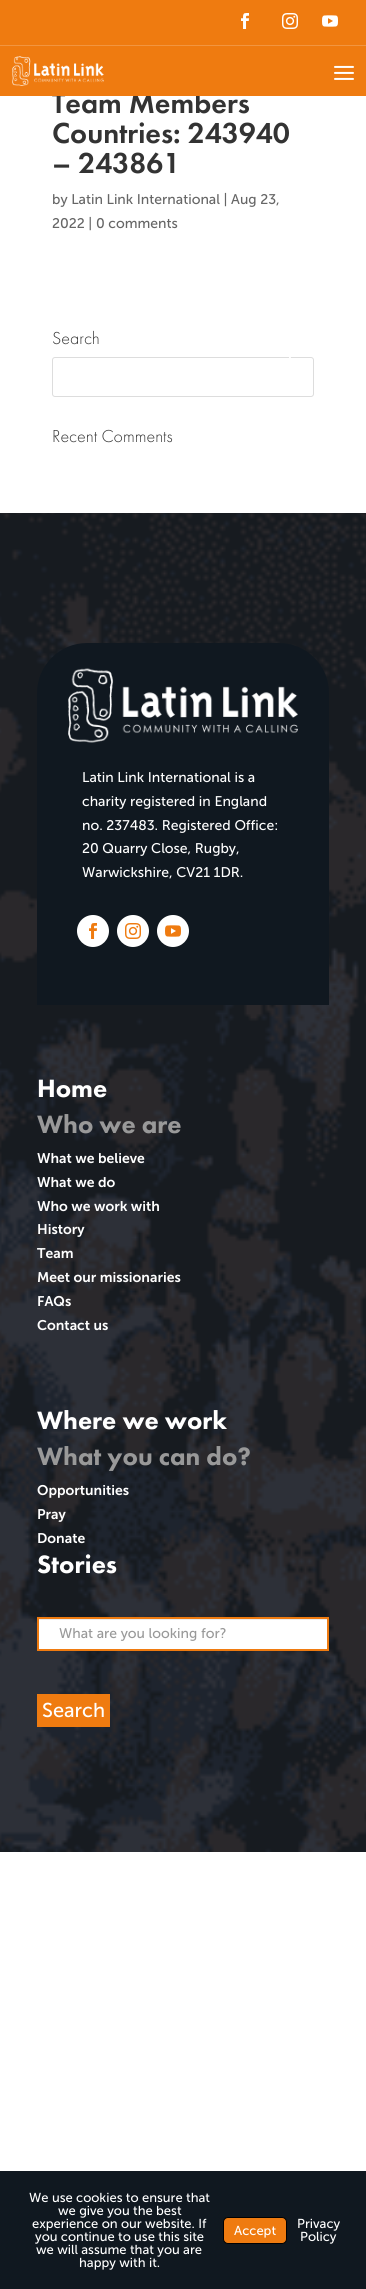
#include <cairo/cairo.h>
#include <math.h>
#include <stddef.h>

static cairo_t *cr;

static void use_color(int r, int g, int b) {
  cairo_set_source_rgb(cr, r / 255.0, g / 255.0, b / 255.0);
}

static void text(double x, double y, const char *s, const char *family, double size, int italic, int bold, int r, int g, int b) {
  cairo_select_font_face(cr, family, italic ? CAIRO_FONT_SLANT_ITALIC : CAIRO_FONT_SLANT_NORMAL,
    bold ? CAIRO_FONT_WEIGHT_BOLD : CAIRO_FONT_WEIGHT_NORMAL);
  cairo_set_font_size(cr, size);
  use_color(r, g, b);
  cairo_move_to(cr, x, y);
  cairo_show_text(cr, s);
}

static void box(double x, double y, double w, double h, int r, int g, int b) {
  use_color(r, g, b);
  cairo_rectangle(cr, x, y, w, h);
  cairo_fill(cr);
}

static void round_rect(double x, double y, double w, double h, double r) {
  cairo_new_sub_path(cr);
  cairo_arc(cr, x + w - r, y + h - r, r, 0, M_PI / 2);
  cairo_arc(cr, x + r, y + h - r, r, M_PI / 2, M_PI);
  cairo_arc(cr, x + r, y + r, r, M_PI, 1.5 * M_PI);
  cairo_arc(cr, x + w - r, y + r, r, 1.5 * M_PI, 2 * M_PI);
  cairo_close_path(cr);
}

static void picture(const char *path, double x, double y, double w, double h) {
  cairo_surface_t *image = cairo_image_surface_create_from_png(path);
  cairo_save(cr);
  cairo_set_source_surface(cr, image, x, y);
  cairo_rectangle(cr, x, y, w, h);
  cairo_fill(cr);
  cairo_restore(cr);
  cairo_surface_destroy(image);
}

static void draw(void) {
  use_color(255, 255, 255);
  cairo_paint(cr);
  box(0, 0, 366, 45, 239, 123, 16);
  box(0, 45, 366, 1, 242, 149, 64);
  picture("img_01.png", 241, 13, 8, 16);
  picture("img_02.png", 282, 13, 16, 16);
  picture("img_03.png", 322, 15, 16, 12);
  round_rect(52.5, 357.5, 261, 39, 2.5);
  use_color(221, 221, 221);
  cairo_set_line_width(cr, 1);
  cairo_stroke(cr);
  picture("img_06.png", 289, 357, 2, 1);
  picture("img_07.png", 0, 513, 366, 1339);
  use_color(16, 24, 32);
  cairo_new_path(cr);
  cairo_move_to(cr, 87, 643);
  cairo_line_to(cr, 279, 643);
  cairo_curve_to(cr, 306.5, 643, 329, 665.5, 329, 693);
  cairo_line_to(cr, 329, 1005);
  cairo_line_to(cr, 37, 1005);
  cairo_line_to(cr, 37, 693);
  cairo_curve_to(cr, 37, 665.5, 59.5, 643, 87, 643);
  cairo_close_path(cr);
  cairo_fill(cr);
  picture("img_08.png", 68, 668, 230, 75);
  use_color(255, 255, 255);
  cairo_arc(cr, 93, 931, 16, 0, 2 * M_PI);
  cairo_fill(cr);
  picture("img_09.png", 89, 923, 8, 16);
  cairo_arc(cr, 133, 931, 16, 0, 2 * M_PI);
  cairo_fill(cr);
  picture("img_10.png", 125, 923, 16, 16);
  cairo_arc(cr, 173, 931, 16, 0, 2 * M_PI);
  cairo_fill(cr);
  picture("img_11.png", 165, 925, 16, 12);
  box(39, 1620, 288, 29, 255, 255, 255);
  box(39, 1619, 288, 1, 236, 236, 236);
  cairo_rectangle(cr, 38, 1618, 290, 32);
  use_color(239, 123, 16);
  cairo_set_line_width(cr, 2);
  cairo_stroke(cr);
  box(37, 1694, 73, 33, 239, 123, 16);
  box(0, 2171, 366, 118, 16, 24, 32);
  use_color(239, 123, 16);
  round_rect(223.5, 2217.5, 63, 26, 4.5);
  cairo_fill_preserve(cr);
  use_color(0, 0, 0);
  cairo_set_line_width(cr, 1);
  cairo_stroke(cr);
  text(52, 113, "Team Members", "Futura PT Medium", 30, 0, 0, 51, 51, 51);
  box(0, 46, 366, 50, 239, 123, 16);
  picture("img_05.png", 334, 65, 20, 15);
  picture("img_04.png", 12, 56, 92, 30);
  text(52, 143, "Countries: 243940", "Futura PT Medium", 30, 0, 0, 51, 51, 51);
  text(52, 173, "– 243861", "Futura PT Medium", 30, 0, 0, 51, 51, 51);
  text(52, 204, "by Latin Link International | Aug 23,", "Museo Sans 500", 14, 0, 0, 102, 102, 102);
  text(52, 228, "2022 | 0 comments", "Museo Sans 500", 14, 0, 0, 102, 102, 102);
  text(52, 344, "Search", "Futura PT Light", 18, 0, 0, 51, 51, 51);
  text(52, 442, "Recent Comments", "Futura PT Light", 18, 0, 0, 51, 51, 51);
  text(82, 782, "Latin Link International is a", "Museo Sans 500", 14, 0, 0, 255, 255, 255);
  text(82, 806, "charity registered in England", "Museo Sans 500", 14, 0, 0, 255, 255, 255);
  text(82, 830, "no. 237483. Registered Office:", "Museo Sans 500", 14, 0, 0, 255, 255, 255);
  text(82, 853, "20 Quarry Close, Rugby,", "Museo Sans 500", 14, 0, 0, 255, 255, 255);
  text(82, 877, "Warwickshire, CV21 1DR.", "Museo Sans 500", 14, 0, 0, 255, 255, 255);
  text(37, 1097, "Home", "Futura PT Black", 26, 0, 0, 255, 255, 255);
  text(37, 1133, "Who we are", "Futura PT Black", 26, 0, 0, 153, 153, 153);
  text(37, 1163, "What we believe", "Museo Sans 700 SemiBold", 14, 0, 0, 255, 255, 255);
  text(37, 1187, "What we do", "Museo Sans 700 SemiBold", 14, 0, 0, 255, 255, 255);
  text(37, 1211, "Who we work with", "Museo Sans 700 SemiBold", 14, 0, 0, 255, 255, 255);
  text(37, 1234, "History", "Museo Sans 700 SemiBold", 14, 0, 0, 255, 255, 255);
  text(37, 1258, "Team", "Museo Sans 700 SemiBold", 14, 0, 0, 255, 255, 255);
  text(37, 1282, "Meet our missionaries", "Museo Sans 700 SemiBold", 14, 0, 0, 255, 255, 255);
  text(37, 1306, "FAQs", "Museo Sans 700 SemiBold", 14, 0, 0, 255, 255, 255);
  text(37, 1330, "Contact us", "Museo Sans 700 SemiBold", 14, 0, 0, 255, 255, 255);
  text(37, 1429, "Where we work", "Futura PT Black", 26, 0, 0, 255, 255, 255);
  text(37, 1465, "What you can do?", "Futura PT Black", 26, 0, 0, 153, 153, 153);
  text(37, 1495, "Opportunities", "Museo Sans 700 SemiBold", 14, 0, 0, 255, 255, 255);
  text(37, 1519, "Pray", "Museo Sans 700 SemiBold", 14, 0, 0, 255, 255, 255);
  text(37, 1543, "Donate", "Museo Sans 700 SemiBold", 14, 0, 0, 255, 255, 255);
  text(37, 1573, "Stories", "Futura PT Black", 26, 0, 0, 255, 255, 255);
  text(59, 1638, "What are you looking for?", "Museo Sans 500", 14, 0, 0, 153, 153, 153);
  text(42, 1717, "Search", "Museo Sans 500", 20, 0, 0, 255, 255, 255);
  text(29, 2202, "We use cookies to ensure that", "Museo Sans 500", 13, 0, 0, 255, 255, 255);
  text(58, 2215, "we give you the best", "Museo Sans 500", 13, 0, 0, 255, 255, 255);
  text(32, 2228, "experience on our website. If", "Museo Sans 500", 13, 0, 0, 255, 255, 255);
  text(35, 2241, "you continue to use this site", "Museo Sans 500", 13, 0, 0, 255, 255, 255);
  text(36, 2254, "we will assume that you are", "Museo Sans 500", 13, 0, 0, 255, 255, 255);
  text(79, 2267, "happy with it.", "Museo Sans 500", 13, 0, 0, 255, 255, 255);
  text(234, 2235, "Accept", "Museo Sans 500", 13, 0, 0, 255, 255, 255);
  text(297, 2228, "Privacy", "Museo Sans 500", 13, 0, 0, 255, 255, 255);
  text(300, 2241, "Policy", "Museo Sans 500", 13, 0, 0, 255, 255, 255);
}

int main(void) {
  cairo_surface_t *surface = cairo_image_surface_create(CAIRO_FORMAT_RGB24, 366, 2289);
  cr = cairo_create(surface);
  cairo_font_options_t *options = cairo_font_options_create();
  cairo_font_options_set_hint_metrics(options, CAIRO_HINT_METRICS_OFF);
  cairo_font_options_set_hint_style(options, CAIRO_HINT_STYLE_NONE);
  cairo_set_font_options(cr, options);
  cairo_set_miter_limit(cr, 4);
  draw();
  cairo_surface_write_to_png(surface, "out.png");
  cairo_font_options_destroy(options);
  cairo_destroy(cr);
  cairo_surface_destroy(surface);
  return 0;
}
